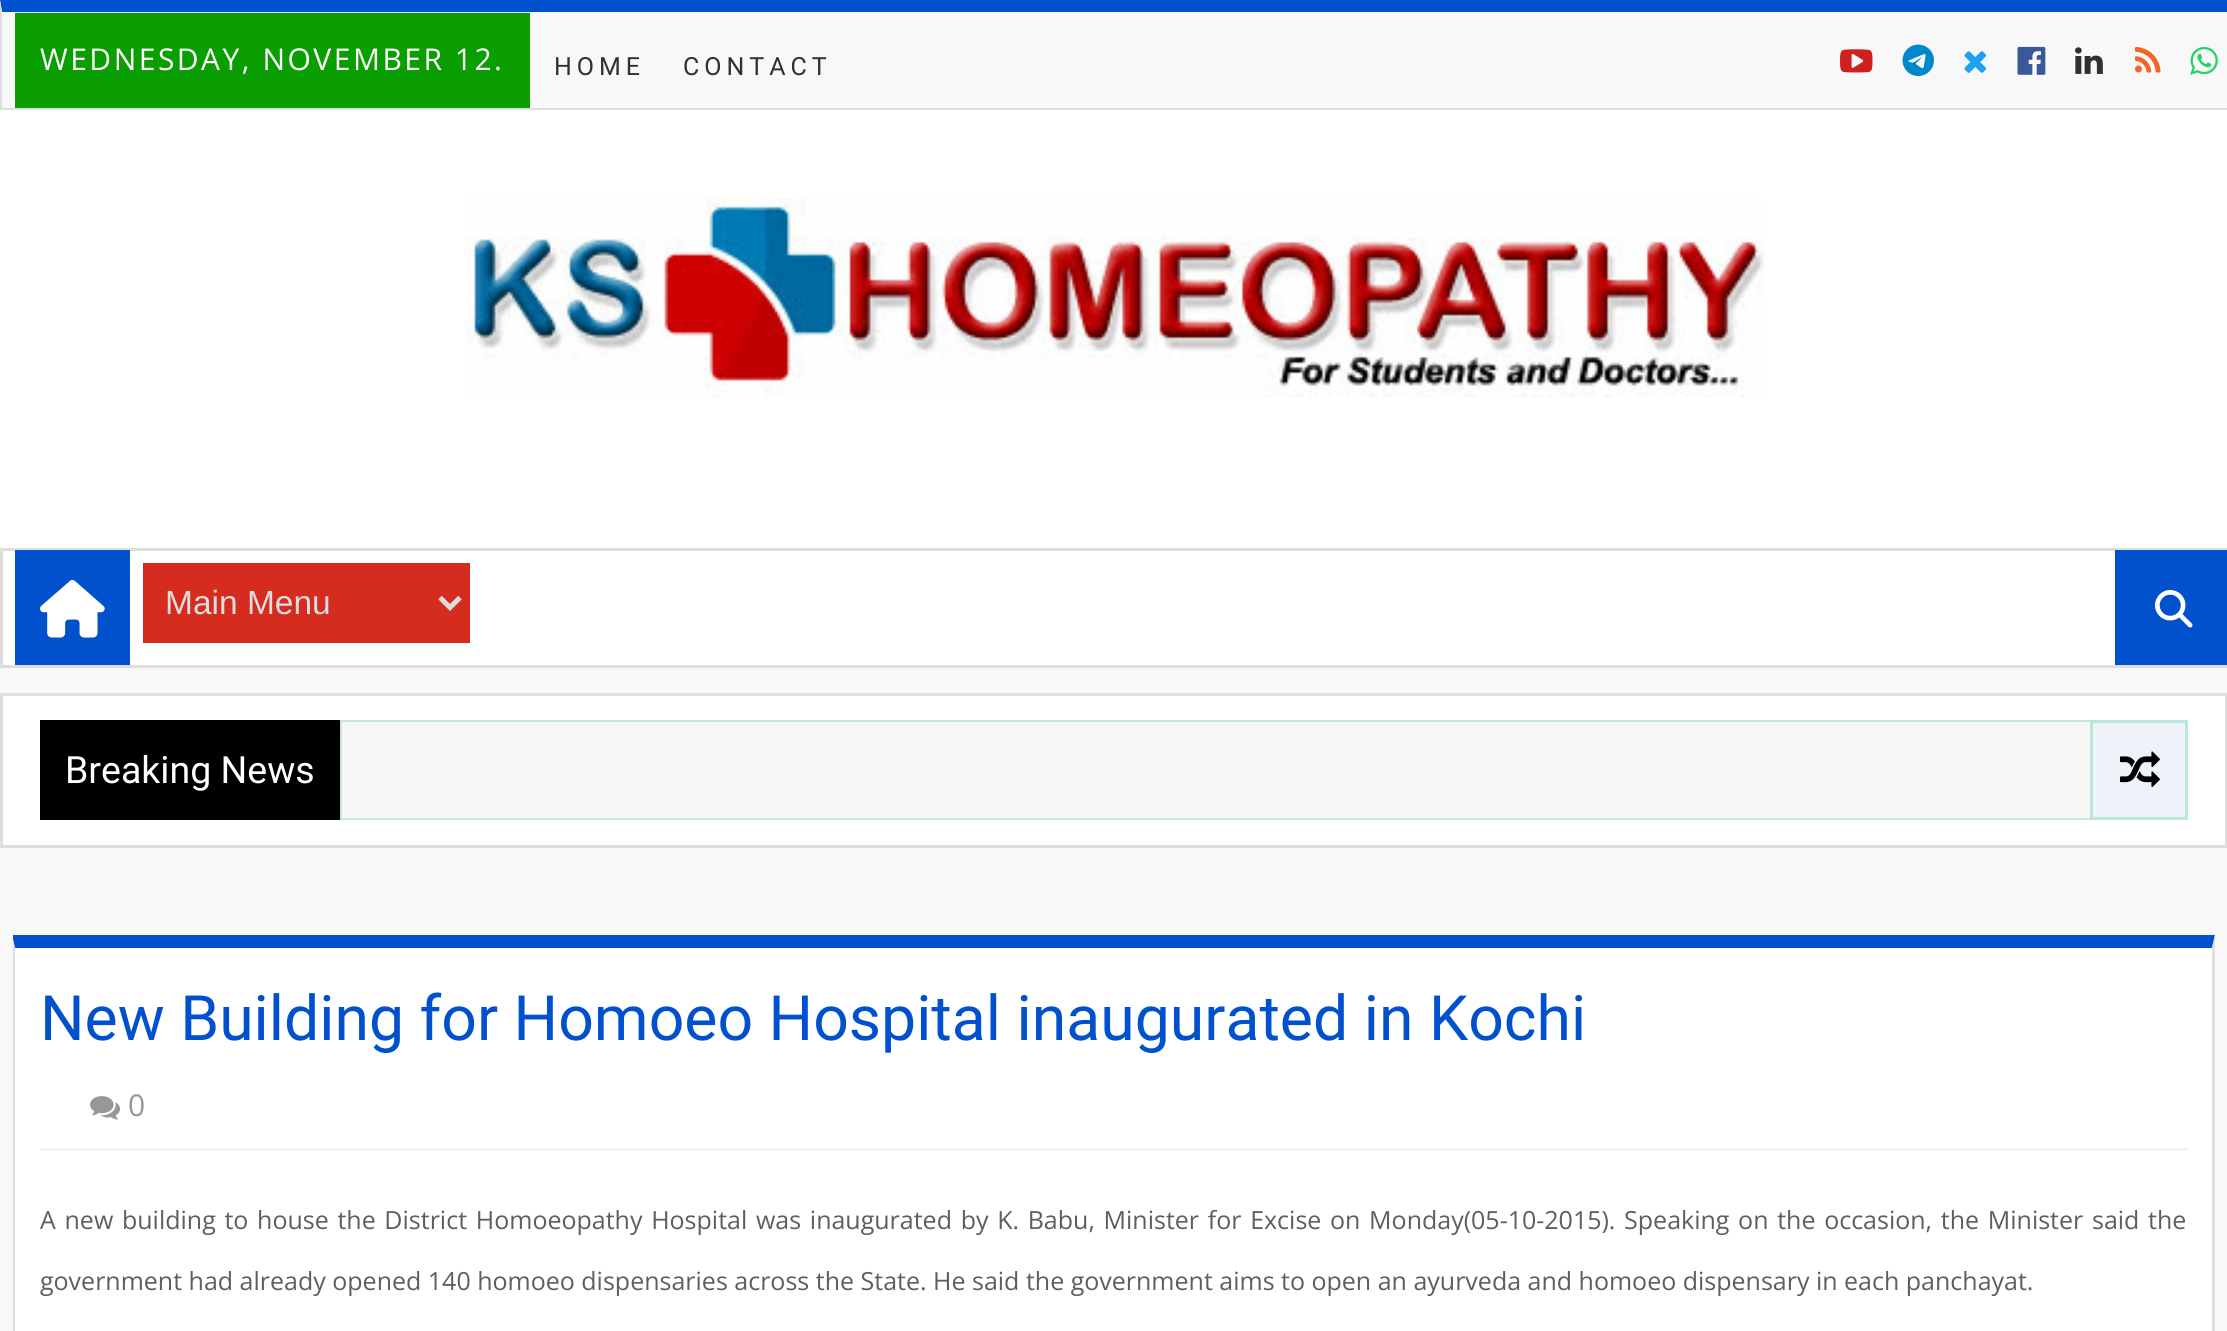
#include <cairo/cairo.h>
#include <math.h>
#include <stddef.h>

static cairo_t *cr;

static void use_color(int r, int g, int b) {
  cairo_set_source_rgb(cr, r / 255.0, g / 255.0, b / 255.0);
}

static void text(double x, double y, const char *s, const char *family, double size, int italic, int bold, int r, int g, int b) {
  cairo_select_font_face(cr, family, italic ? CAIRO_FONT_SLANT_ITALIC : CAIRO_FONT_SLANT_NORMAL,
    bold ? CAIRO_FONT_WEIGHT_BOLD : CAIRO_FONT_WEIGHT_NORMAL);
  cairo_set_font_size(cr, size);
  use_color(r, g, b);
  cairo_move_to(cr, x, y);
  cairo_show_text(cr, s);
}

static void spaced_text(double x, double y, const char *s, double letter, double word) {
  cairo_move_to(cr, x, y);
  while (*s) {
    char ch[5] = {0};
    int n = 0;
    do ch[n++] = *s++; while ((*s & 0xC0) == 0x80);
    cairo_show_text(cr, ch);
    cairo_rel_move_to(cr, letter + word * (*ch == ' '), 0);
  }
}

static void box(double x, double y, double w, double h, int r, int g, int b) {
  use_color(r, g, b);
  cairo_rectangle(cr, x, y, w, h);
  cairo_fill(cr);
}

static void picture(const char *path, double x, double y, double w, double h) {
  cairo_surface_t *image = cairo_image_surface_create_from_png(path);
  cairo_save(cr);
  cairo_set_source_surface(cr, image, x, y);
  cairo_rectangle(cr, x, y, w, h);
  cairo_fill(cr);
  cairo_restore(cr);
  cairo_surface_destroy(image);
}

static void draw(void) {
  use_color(248, 248, 248);
  cairo_paint(cr);
  use_color(1, 80, 206);
  cairo_new_path(cr);
  cairo_move_to(cr, 0, 0);
  cairo_line_to(cr, 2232, 0);
  cairo_line_to(cr, 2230, 12);
  cairo_line_to(cr, 2, 12);
  cairo_close_path(cr);
  cairo_fill(cr);
  box(0, 108, 2227, 2, 222, 222, 222);
  cairo_new_path(cr);
  cairo_move_to(cr, 0, 110);
  cairo_line_to(cr, 0, 0);
  cairo_line_to(cr, 2, 12);
  cairo_line_to(cr, 2, 108);
  cairo_close_path(cr);
  cairo_fill(cr);
  box(15, 13, 515, 95, 10, 158, 1);
  picture("img_01.png", 1840, 49, 33, 24);
  picture("img_02.png", 1902, 44, 32, 33);
  picture("img_03.png", 1964, 51, 22, 22);
  picture("img_04.png", 2017, 46, 29, 29);
  picture("img_05.png", 2075, 47, 28, 27);
  picture("img_06.png", 2135, 47, 26, 26);
  picture("img_07.png", 2190, 46, 28, 29);
  box(0, 110, 2227, 438, 255, 255, 255);
  picture("img_08.png", 465, 197, 1300, 201);
  box(3, 551, 2112, 114, 255, 255, 255);
  cairo_rectangle(cr, 1.5, 549.5, 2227, 117);
  use_color(222, 222, 222);
  cairo_set_line_width(cr, 3);
  cairo_stroke(cr);
  box(15, 550, 115, 115, 1, 80, 206);
  picture("img_09.png", 40, 580, 65, 58);
  box(143, 563, 327, 80, 213, 44, 31);
  cairo_new_path(cr);
  cairo_move_to(cr, 440, 597.5);
  cairo_line_to(cr, 450, 607.5);
  cairo_line_to(cr, 460, 597.5);
  use_color(221, 221, 221);
  cairo_set_line_width(cr, 5);
  cairo_stroke(cr);
  box(2115, 550, 112, 115, 1, 80, 206);
  picture("img_10.png", 2155, 590, 38, 38);
  use_color(255, 255, 255);
  cairo_rectangle(cr, 1.5, 694.5, 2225, 152);
  cairo_fill_preserve(cr);
  use_color(222, 222, 222);
  cairo_set_line_width(cr, 3);
  cairo_stroke(cr);
  box(340, 720, 1750, 100, 247, 247, 247);
  box(40, 720, 300, 100, 0, 0, 0);
  use_color(196, 233, 218);
  cairo_new_path(cr);
  cairo_move_to(cr, 340, 720);
  cairo_line_to(cr, 2090, 720);
  cairo_line_to(cr, 2090, 722);
  cairo_line_to(cr, 342, 722);
  cairo_close_path(cr);
  cairo_fill(cr);
  cairo_new_path(cr);
  cairo_move_to(cr, 2090, 820);
  cairo_line_to(cr, 340, 820);
  cairo_line_to(cr, 342, 818);
  cairo_line_to(cr, 2090, 818);
  cairo_close_path(cr);
  cairo_fill(cr);
  cairo_set_source_rgba(cr, 0.055, 0.725, 0.459, 0.22);
  cairo_new_path(cr);
  cairo_move_to(cr, 340, 820);
  cairo_line_to(cr, 340, 720);
  cairo_line_to(cr, 342, 722);
  cairo_line_to(cr, 342, 818);
  cairo_close_path(cr);
  cairo_fill(cr);
  use_color(237, 243, 248);
  cairo_rectangle(cr, 2091.5, 721.5, 95, 97);
  cairo_fill_preserve(cr);
  use_color(188, 230, 219);
  cairo_stroke(cr);
  picture("img_11.png", 2120, 751, 40, 37);
  box(15, 948, 2197, 383, 255, 255, 255);
  cairo_save(cr);
  cairo_rectangle(cr, 13, 935, 2202, 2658);
  cairo_clip(cr);
  use_color(1, 80, 206);
  cairo_new_path(cr);
  cairo_move_to(cr, 12, 935);
  cairo_line_to(cr, 2215, 935);
  cairo_line_to(cr, 2212, 948);
  cairo_line_to(cr, 15, 948);
  cairo_close_path(cr);
  cairo_fill(cr);
  cairo_restore(cr);
  use_color(222, 222, 222);
  cairo_new_path(cr);
  cairo_move_to(cr, 2215, 935);
  cairo_line_to(cr, 2215, 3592);
  cairo_line_to(cr, 2212, 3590);
  cairo_line_to(cr, 2212, 948);
  cairo_close_path(cr);
  cairo_fill(cr);
  cairo_save(cr);
  cairo_rectangle(cr, 13, 935, 2202, 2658);
  cairo_clip(cr);
  cairo_new_path(cr);
  cairo_move_to(cr, 12, 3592);
  cairo_line_to(cr, 12, 935);
  cairo_line_to(cr, 15, 948);
  cairo_line_to(cr, 15, 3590);
  cairo_close_path(cr);
  cairo_fill(cr);
  cairo_restore(cr);
  box(40, 1148, 2148, 3, 242, 242, 242);
  picture("img_12.png", 90, 1096, 30, 24);
  cairo_select_font_face(cr, "Open Sans", CAIRO_FONT_SLANT_NORMAL, CAIRO_FONT_WEIGHT_NORMAL);
  cairo_set_font_size(cr, 30);
  use_color(255, 255, 255);
  spaced_text(40, 70, "WEDNESDAY, NOVEMBER 12.", 2.5, 0);
  cairo_select_font_face(cr, "Roboto", CAIRO_FONT_SLANT_NORMAL, CAIRO_FONT_WEIGHT_NORMAL);
  cairo_set_font_size(cr, 25);
  use_color(48, 48, 48);
  spaced_text(554, 75, "HOME", 5, 0);
  spaced_text(683, 75, "CONTACT", 5, 0);
  text(165, 614, "Main Menu", "Liberation Sans", 33.5, 0, 0, 221, 221, 221);
  text(65, 783, "Breaking News", "Roboto", 37.5, 0, 0, 255, 255, 255);
  text(40, 1040, "New Building for Homoeo Hospital inaugurated in Kochi", "Roboto", 62.5, 0, 0, 1, 80, 206);
  text(128, 1116, "0", "Open Sans", 30, 0, 0, 151, 151, 151);
  cairo_set_font_size(cr, 25);
  use_color(94, 94, 94);
  spaced_text(40, 1229, "A new building to house the District Homoeopathy Hospital was inaugurated by K. Babu, Minister for Excise on Monday(05-10-2015). Speaking on the occasion, the Minister said the", 0, 2.2);
  text(40, 1290, "government had already opened 140 homoeo dispensaries across the State. He said the government aims to open an ayurveda and homoeo dispensary in each panchayat.", "Open Sans", 25, 0, 0, 94, 94, 94);
}

int main(void) {
  cairo_surface_t *surface = cairo_image_surface_create(CAIRO_FORMAT_RGB24, 2227, 1331);
  cr = cairo_create(surface);
  cairo_font_options_t *options = cairo_font_options_create();
  cairo_font_options_set_hint_metrics(options, CAIRO_HINT_METRICS_OFF);
  cairo_font_options_set_hint_style(options, CAIRO_HINT_STYLE_NONE);
  cairo_set_font_options(cr, options);
  cairo_set_miter_limit(cr, 4);
  draw();
  cairo_surface_write_to_png(surface, "out.png");
  cairo_font_options_destroy(options);
  cairo_destroy(cr);
  cairo_surface_destroy(surface);
  return 0;
}
